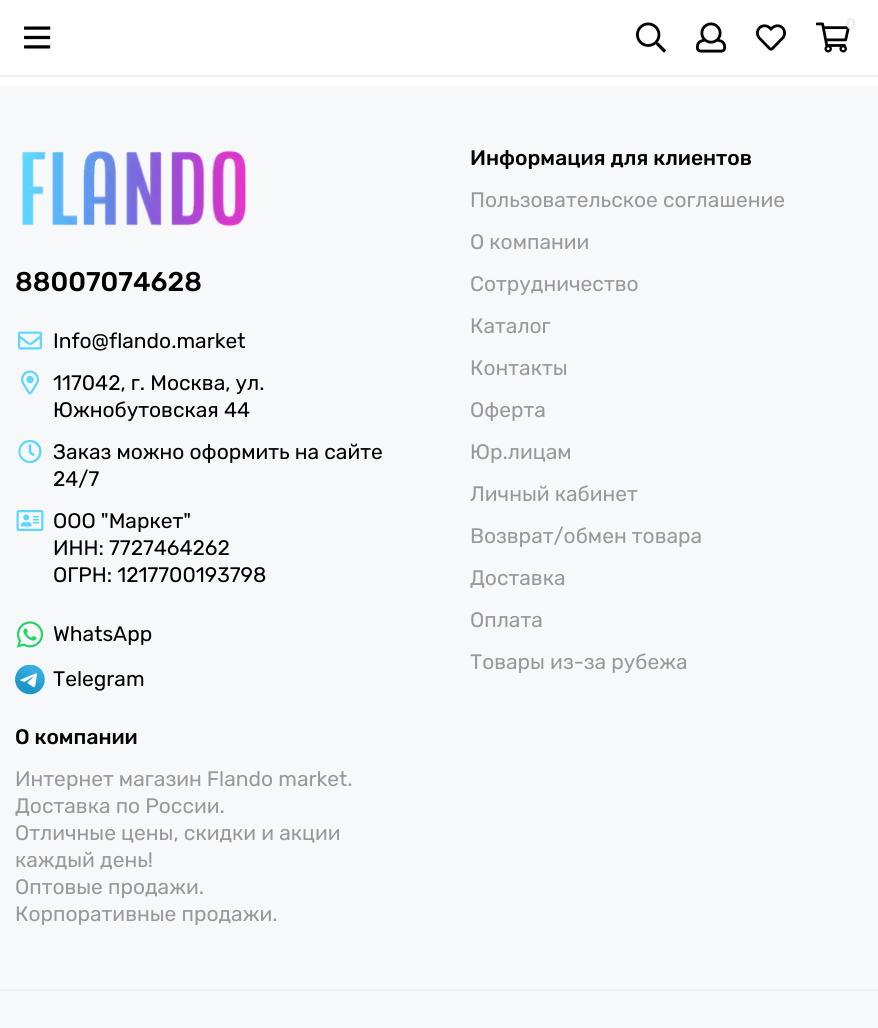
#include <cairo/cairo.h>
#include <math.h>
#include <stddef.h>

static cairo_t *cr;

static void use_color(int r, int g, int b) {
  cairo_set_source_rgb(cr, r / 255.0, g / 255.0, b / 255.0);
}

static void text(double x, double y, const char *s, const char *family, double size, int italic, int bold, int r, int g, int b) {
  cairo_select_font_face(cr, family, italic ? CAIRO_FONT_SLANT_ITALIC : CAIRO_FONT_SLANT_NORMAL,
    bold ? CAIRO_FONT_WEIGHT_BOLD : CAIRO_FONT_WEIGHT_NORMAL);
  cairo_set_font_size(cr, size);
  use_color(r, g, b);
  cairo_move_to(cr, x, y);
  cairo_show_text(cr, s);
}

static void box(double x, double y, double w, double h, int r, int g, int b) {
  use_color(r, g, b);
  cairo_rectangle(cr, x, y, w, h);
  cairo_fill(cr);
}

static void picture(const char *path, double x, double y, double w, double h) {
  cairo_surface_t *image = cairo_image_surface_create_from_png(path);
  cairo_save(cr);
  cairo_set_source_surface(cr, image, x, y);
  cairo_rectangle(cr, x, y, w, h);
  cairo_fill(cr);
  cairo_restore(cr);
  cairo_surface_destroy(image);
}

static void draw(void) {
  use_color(255, 255, 255);
  cairo_paint(cr);
  box(0, 75, 878, 2, 238, 238, 238);
  picture("img_01.png", 636, 22, 30, 31);
  picture("img_02.png", 696, 22, 30, 31);
  picture("img_03.png", 756, 24, 30, 27);
  picture("img_04.png", 816, 22, 34, 31);
  picture("img_05.png", 24, 26, 27, 23);
  box(0, 86, 878, 903, 247, 248, 250);
  picture("img_06.png", 21, 151, 226, 76);
  picture("img_07.png", 18, 331, 24, 19);
  picture("img_08.png", 21, 370, 18, 25);
  picture("img_09.png", 18, 439, 24, 25);
  picture("img_10.png", 16, 510, 28, 21);
  picture("img_11.png", 16, 621, 28, 27);
  picture("img_12.png", 15, 665, 30, 30);
  box(0, 991, 878, 37, 247, 248, 250);
  box(0, 989, 878, 2, 238, 238, 238);
  text(846, 29, "0", "Rubik Medium", 15, 0, 0, 235, 235, 235);
  text(15, 291, "88007074628", "Rubik Medium", 27, 0, 0, 0, 0, 0);
  text(53, 348, "Info@flando.market", "Rubik", 21, 0, 0, 0, 0, 0);
  text(53, 390, "117042, г. Москва, ул.", "Rubik", 21, 0, 0, 0, 0, 0);
  text(53, 417, "Южнобутовская 44", "Rubik", 21, 0, 0, 0, 0, 0);
  text(53, 459, "Заказ можно оформить на сайте", "Rubik", 21, 0, 0, 0, 0, 0);
  text(53, 486, "24/7", "Rubik", 21, 0, 0, 0, 0, 0);
  text(53, 528, "ООО \"Маркет\"", "Rubik", 21, 0, 0, 0, 0, 0);
  text(53, 555, "ИНН: 7727464262", "Rubik", 21, 0, 0, 0, 0, 0);
  text(53, 582, "ОГРН: 1217700193798", "Rubik", 21, 0, 0, 0, 0, 0);
  text(53, 641, "WhatsApp", "Rubik", 21, 0, 0, 0, 0, 0);
  text(53, 686, "Telegram", "Rubik", 21, 0, 0, 0, 0, 0);
  text(470, 165, "Информация для клиентов", "Rubik Medium", 21, 0, 0, 0, 0, 0);
  text(470, 207, "Пользовательское соглашение", "Rubik", 21, 0, 0, 153, 153, 153);
  text(470, 249, "О компании", "Rubik", 21, 0, 0, 153, 153, 153);
  text(470, 291, "Сотрудничество", "Rubik", 21, 0, 0, 153, 153, 153);
  text(470, 333, "Каталог", "Rubik", 21, 0, 0, 153, 153, 153);
  text(470, 375, "Контакты", "Rubik", 21, 0, 0, 153, 153, 153);
  text(470, 417, "Оферта", "Rubik", 21, 0, 0, 153, 153, 153);
  text(470, 459, "Юр.лицам", "Rubik", 21, 0, 0, 153, 153, 153);
  text(470, 501, "Личный кабинет", "Rubik", 21, 0, 0, 153, 153, 153);
  text(470, 543, "Возврат/обмен товара", "Rubik", 21, 0, 0, 153, 153, 153);
  text(470, 585, "Доставка", "Rubik", 21, 0, 0, 153, 153, 153);
  text(470, 627, "Оплата", "Rubik", 21, 0, 0, 153, 153, 153);
  text(470, 669, "Товары из-за рубежа", "Rubik", 21, 0, 0, 153, 153, 153);
  text(15, 744, "О компании", "Rubik Medium", 21, 0, 0, 0, 0, 0);
  text(15, 786, "Интернет магазин Flando market.", "Rubik", 21, 0, 0, 153, 153, 153);
  text(15, 813, "Доставка по России.", "Rubik", 21, 0, 0, 153, 153, 153);
  text(15, 840, "Отличные цены, скидки и акции", "Rubik", 21, 0, 0, 153, 153, 153);
  text(15, 867, "каждый день!", "Rubik", 21, 0, 0, 153, 153, 153);
  text(15, 894, "Оптовые продажи.", "Rubik", 21, 0, 0, 153, 153, 153);
  text(15, 921, "Корпоративные продажи.", "Rubik", 21, 0, 0, 153, 153, 153);
}

int main(void) {
  cairo_surface_t *surface = cairo_image_surface_create(CAIRO_FORMAT_RGB24, 878, 1028);
  cr = cairo_create(surface);
  cairo_font_options_t *options = cairo_font_options_create();
  cairo_font_options_set_hint_metrics(options, CAIRO_HINT_METRICS_OFF);
  cairo_font_options_set_hint_style(options, CAIRO_HINT_STYLE_NONE);
  cairo_set_font_options(cr, options);
  cairo_set_miter_limit(cr, 4);
  draw();
  cairo_surface_write_to_png(surface, "out.png");
  cairo_font_options_destroy(options);
  cairo_destroy(cr);
  cairo_surface_destroy(surface);
  return 0;
}
